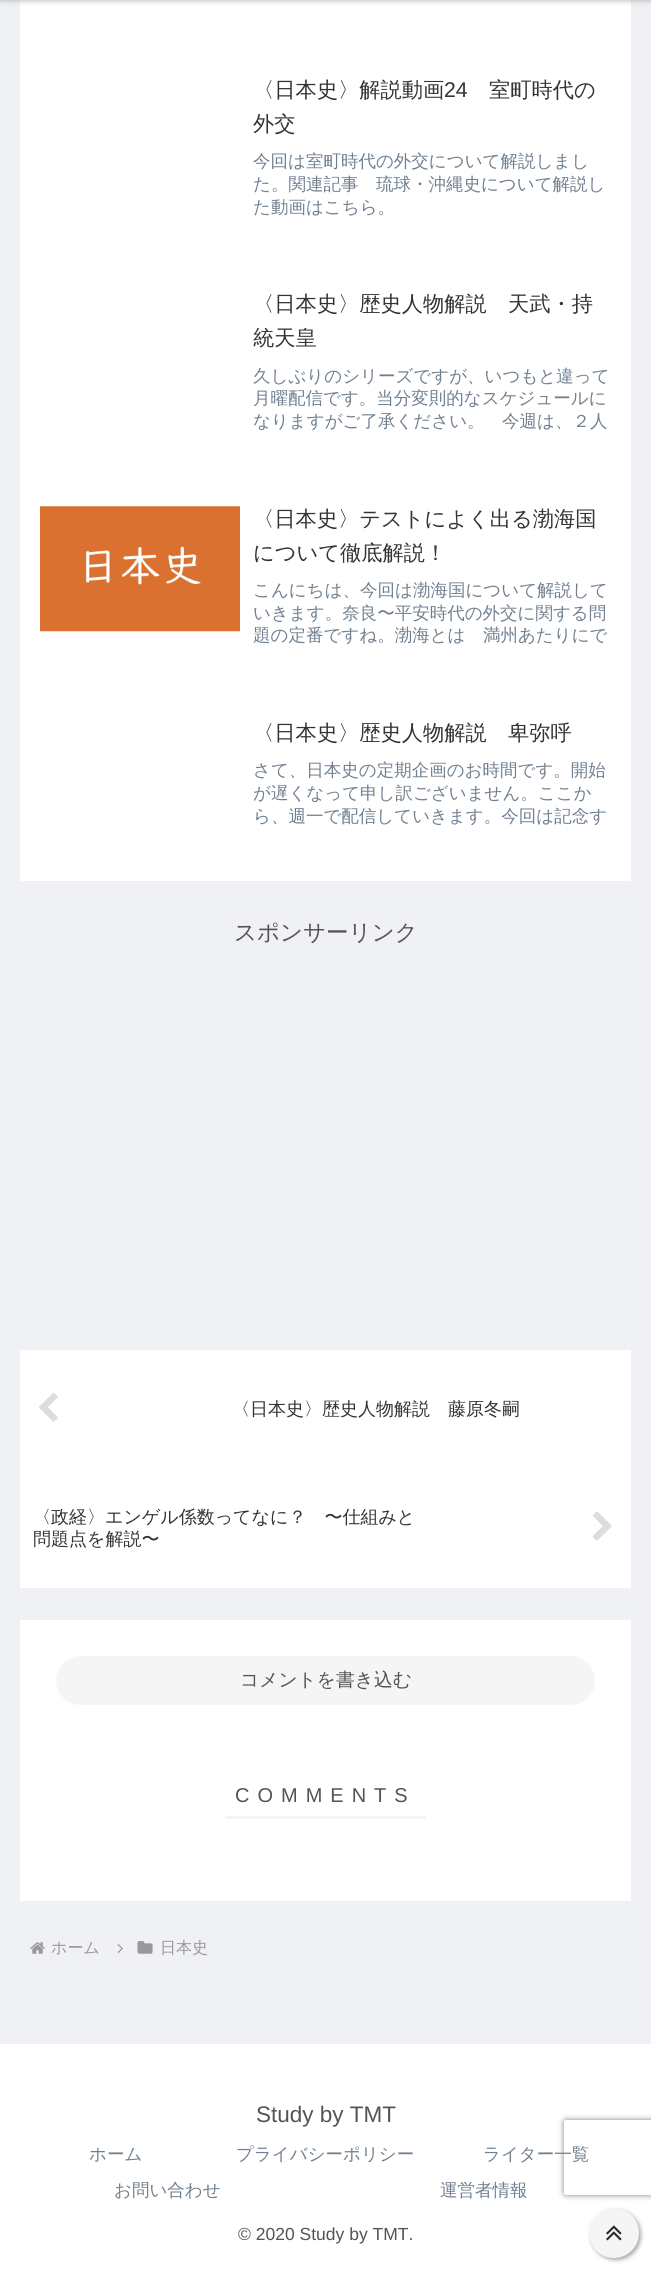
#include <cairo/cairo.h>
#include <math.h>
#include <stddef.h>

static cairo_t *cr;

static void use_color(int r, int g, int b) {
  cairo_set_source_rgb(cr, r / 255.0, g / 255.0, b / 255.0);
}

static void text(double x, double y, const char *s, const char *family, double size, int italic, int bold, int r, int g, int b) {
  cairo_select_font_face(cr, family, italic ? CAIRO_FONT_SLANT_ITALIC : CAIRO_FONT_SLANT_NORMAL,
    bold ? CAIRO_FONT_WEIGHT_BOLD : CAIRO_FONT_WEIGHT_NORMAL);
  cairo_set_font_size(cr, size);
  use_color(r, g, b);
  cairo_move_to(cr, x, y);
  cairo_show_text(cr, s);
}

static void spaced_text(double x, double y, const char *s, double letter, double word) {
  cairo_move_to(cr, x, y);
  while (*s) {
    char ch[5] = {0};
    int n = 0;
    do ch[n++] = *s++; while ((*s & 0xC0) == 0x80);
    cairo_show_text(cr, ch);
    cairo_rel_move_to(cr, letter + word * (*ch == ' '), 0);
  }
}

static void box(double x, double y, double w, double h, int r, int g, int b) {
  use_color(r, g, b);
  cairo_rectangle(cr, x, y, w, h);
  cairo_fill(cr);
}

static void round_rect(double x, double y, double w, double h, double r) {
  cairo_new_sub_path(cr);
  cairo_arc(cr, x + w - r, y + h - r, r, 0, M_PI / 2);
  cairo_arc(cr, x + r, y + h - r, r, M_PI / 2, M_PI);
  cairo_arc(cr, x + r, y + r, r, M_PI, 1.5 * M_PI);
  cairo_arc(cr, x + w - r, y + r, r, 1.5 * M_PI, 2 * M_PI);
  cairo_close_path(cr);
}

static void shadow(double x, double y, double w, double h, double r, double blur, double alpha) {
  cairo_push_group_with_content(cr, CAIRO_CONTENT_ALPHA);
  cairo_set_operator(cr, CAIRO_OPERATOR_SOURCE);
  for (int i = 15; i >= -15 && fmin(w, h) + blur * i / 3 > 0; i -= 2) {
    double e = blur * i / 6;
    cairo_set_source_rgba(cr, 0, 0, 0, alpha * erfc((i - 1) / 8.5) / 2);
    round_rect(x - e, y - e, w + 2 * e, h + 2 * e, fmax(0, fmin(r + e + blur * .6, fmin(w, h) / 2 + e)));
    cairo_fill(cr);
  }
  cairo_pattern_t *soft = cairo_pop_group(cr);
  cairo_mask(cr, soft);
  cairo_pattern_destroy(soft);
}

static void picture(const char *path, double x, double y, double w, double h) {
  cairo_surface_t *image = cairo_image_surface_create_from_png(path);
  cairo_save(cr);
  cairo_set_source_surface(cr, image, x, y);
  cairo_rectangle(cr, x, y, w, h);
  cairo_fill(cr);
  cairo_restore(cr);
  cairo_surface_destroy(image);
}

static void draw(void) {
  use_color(239, 241, 245);
  cairo_paint(cr);
  box(20, 0, 611, 881, 255, 255, 255);
  use_color(169, 169, 169);
  shadow(0, -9, 651, 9, 0, 3, 1);
  picture("img_01.png", 40, 506, 200, 126);
  box(20, 1350, 611, 238, 255, 255, 255);
  picture("img_02.png", 39, 1392, 19, 30);
  picture("img_03.png", 593, 1511, 19, 30);
  box(20, 1620, 611, 281, 255, 255, 255);
  use_color(245, 245, 245);
  round_rect(56, 1656, 539, 49, 24.5);
  cairo_fill(cr);
  box(225, 1816, 201, 3, 245, 245, 245);
  picture("img_04.png", 30, 1942, 15, 12);
  picture("img_05.png", 117, 1944, 6, 9);
  picture("img_06.png", 137, 1941, 16, 13);
  box(0, 2044, 651, 226, 255, 255, 255);
  use_color(169, 169, 169);
  shadow(591, 2210, 50, 50, 25, 2, 1);
  use_color(245, 245, 245);
  cairo_arc(cr, 614, 2233, 25, 0, 2 * M_PI);
  cairo_fill(cr);
  picture("img_07.png", 606, 2225, 16, 16);
  cairo_save(cr);
  cairo_set_fill_rule(cr, CAIRO_FILL_RULE_EVEN_ODD);
  cairo_new_path(cr);
  cairo_move_to(cr, 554, 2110);
  cairo_line_to(cr, 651, 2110);
  cairo_line_to(cr, 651, 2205);
  cairo_line_to(cr, 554, 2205);
  cairo_close_path(cr);
  cairo_move_to(cr, 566.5, 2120);
  cairo_line_to(cr, 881.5, 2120);
  cairo_curve_to(cr, 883, 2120, 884, 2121, 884, 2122.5);
  cairo_line_to(cr, 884, 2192.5);
  cairo_curve_to(cr, 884, 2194, 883, 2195, 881.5, 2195);
  cairo_line_to(cr, 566.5, 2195);
  cairo_curve_to(cr, 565, 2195, 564, 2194, 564, 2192.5);
  cairo_line_to(cr, 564, 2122.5);
  cairo_curve_to(cr, 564, 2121, 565, 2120, 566.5, 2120);
  cairo_close_path(cr);
  cairo_clip(cr);
  use_color(128, 128, 128);
  shadow(564, 2120, 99, 75, 2.5, 3, 1);
  cairo_restore(cr);
  text(253, 97, "〈日本史〉解説動画", "WenQuanYi Zen Hei Medium", 21.25, 0, 0, 51, 51, 51);
  text(444, 97, "24", "Liberation Sans", 21.25, 0, 0, 51, 51, 51);
  text(489, 97, "室町時代の", "WenQuanYi Zen Hei Medium", 21.25, 0, 0, 51, 51, 51);
  text(253, 131, "外交", "WenQuanYi Zen Hei Medium", 21.25, 0, 0, 51, 51, 51);
  text(253, 167, "今回は室町時代の外交について解説しまし", "WenQuanYi Zen Hei Medium", 17.5, 0, 0, 112, 128, 144);
  text(253, 190, "た。関連記事　琉球・沖縄史について解説し", "WenQuanYi Zen Hei Medium", 17.5, 0, 0, 112, 128, 144);
  text(253, 213, "た動画はこちら。", "WenQuanYi Zen Hei Medium", 17.5, 0, 0, 112, 128, 144);
  text(253, 311, "〈日本史〉歴史人物解説　天武・持", "WenQuanYi Zen Hei Medium", 21.25, 0, 0, 51, 51, 51);
  text(253, 345, "統天皇", "WenQuanYi Zen Hei Medium", 21.25, 0, 0, 51, 51, 51);
  text(253, 382, "久しぶりのシリーズですが、いつもと違って", "WenQuanYi Zen Hei Medium", 17.5, 0, 0, 112, 128, 144);
  text(253, 404, "月曜配信です。当分変則的なスケジュールに", "WenQuanYi Zen Hei Medium", 17.5, 0, 0, 112, 128, 144);
  text(253, 427, "なりますがご了承ください。　今週は、２人", "WenQuanYi Zen Hei Medium", 17.5, 0, 0, 112, 128, 144);
  text(253, 526, "〈日本史〉テストによく出る渤海国", "WenQuanYi Zen Hei Medium", 21.25, 0, 0, 51, 51, 51);
  text(253, 560, "について徹底解説！", "WenQuanYi Zen Hei Medium", 21.25, 0, 0, 51, 51, 51);
  text(253, 596, "こんにちは、今回は渤海国について解説して", "WenQuanYi Zen Hei Medium", 17.5, 0, 0, 112, 128, 144);
  text(253, 619, "いきます。奈良〜平安時代の外交に関する問", "WenQuanYi Zen Hei Medium", 17.5, 0, 0, 112, 128, 144);
  text(253, 641, "題の定番ですね。渤海とは　満州あたりにで", "WenQuanYi Zen Hei Medium", 17.5, 0, 0, 112, 128, 144);
  text(253, 740, "〈日本史〉歴史人物解説　卑弥呼", "WenQuanYi Zen Hei Medium", 21.25, 0, 0, 51, 51, 51);
  text(253, 776, "さて、日本史の定期企画のお時間です。開始", "WenQuanYi Zen Hei Medium", 17.5, 0, 0, 112, 128, 144);
  text(253, 799, "が遅くなって申し訳ございません。ここか", "WenQuanYi Zen Hei Medium", 17.5, 0, 0, 112, 128, 144);
  text(253, 822, "ら、週一で配信していきます。今回は記念す", "WenQuanYi Zen Hei Medium", 17.5, 0, 0, 112, 128, 144);
  text(234, 940, "スポンサーリンク", "WenQuanYi Zen Hei Medium", 22.5, 0, 0, 84, 84, 84);
  text(232, 1415, "〈日本史〉歴史人物解説　藤原冬嗣", "WenQuanYi Zen Hei Medium", 18, 0, 0, 51, 51, 51);
  text(33, 1523, "〈政経〉エンゲル係数ってなに？　〜仕組みと", "WenQuanYi Zen Hei Medium", 18, 0, 0, 51, 51, 51);
  text(33, 1545, "問題点を解説〜", "WenQuanYi Zen Hei Medium", 18, 0, 0, 51, 51, 51);
  text(240, 1686, "コメントを書き込む", "WenQuanYi Zen Hei Medium", 18.75, 0, 0, 84, 84, 84);
  cairo_select_font_face(cr, "Liberation Sans", CAIRO_FONT_SLANT_NORMAL, CAIRO_FONT_WEIGHT_NORMAL);
  cairo_set_font_size(cr, 20);
  spaced_text(235, 1802, "COMMENTS", 8, 0);
  text(51, 1953, "ホーム", "WenQuanYi Zen Hei Medium", 16, 0, 0, 153, 153, 153);
  text(160, 1953, "日本史", "WenQuanYi Zen Hei Medium", 16, 0, 0, 153, 153, 153);
  text(256, 2122, "Study by TMT", "Liberation Sans", 22.5, 0, 0, 84, 84, 84);
  text(89, 2160, "ホーム", "WenQuanYi Zen Hei Medium", 17.5, 0, 0, 112, 128, 144);
  text(236, 2160, "プライバシーポリシー", "WenQuanYi Zen Hei Medium", 17.5, 0, 0, 112, 128, 144);
  text(483, 2160, "ライター一覧", "WenQuanYi Zen Hei Medium", 17.5, 0, 0, 112, 128, 144);
  text(114, 2196, "お問い合わせ", "WenQuanYi Zen Hei Medium", 17.5, 0, 0, 112, 128, 144);
  text(440, 2196, "運営者情報", "WenQuanYi Zen Hei Medium", 17.5, 0, 0, 112, 128, 144);
  text(238, 2240, "© 2020 Study by TMT.", "Liberation Sans", 17.5, 0, 0, 84, 84, 84);
}

int main(void) {
  cairo_surface_t *surface = cairo_image_surface_create(CAIRO_FORMAT_RGB24, 651, 2270);
  cr = cairo_create(surface);
  cairo_font_options_t *options = cairo_font_options_create();
  cairo_font_options_set_hint_metrics(options, CAIRO_HINT_METRICS_OFF);
  cairo_font_options_set_hint_style(options, CAIRO_HINT_STYLE_NONE);
  cairo_set_font_options(cr, options);
  cairo_set_miter_limit(cr, 4);
  draw();
  cairo_surface_write_to_png(surface, "out.png");
  cairo_font_options_destroy(options);
  cairo_destroy(cr);
  cairo_surface_destroy(surface);
  return 0;
}
